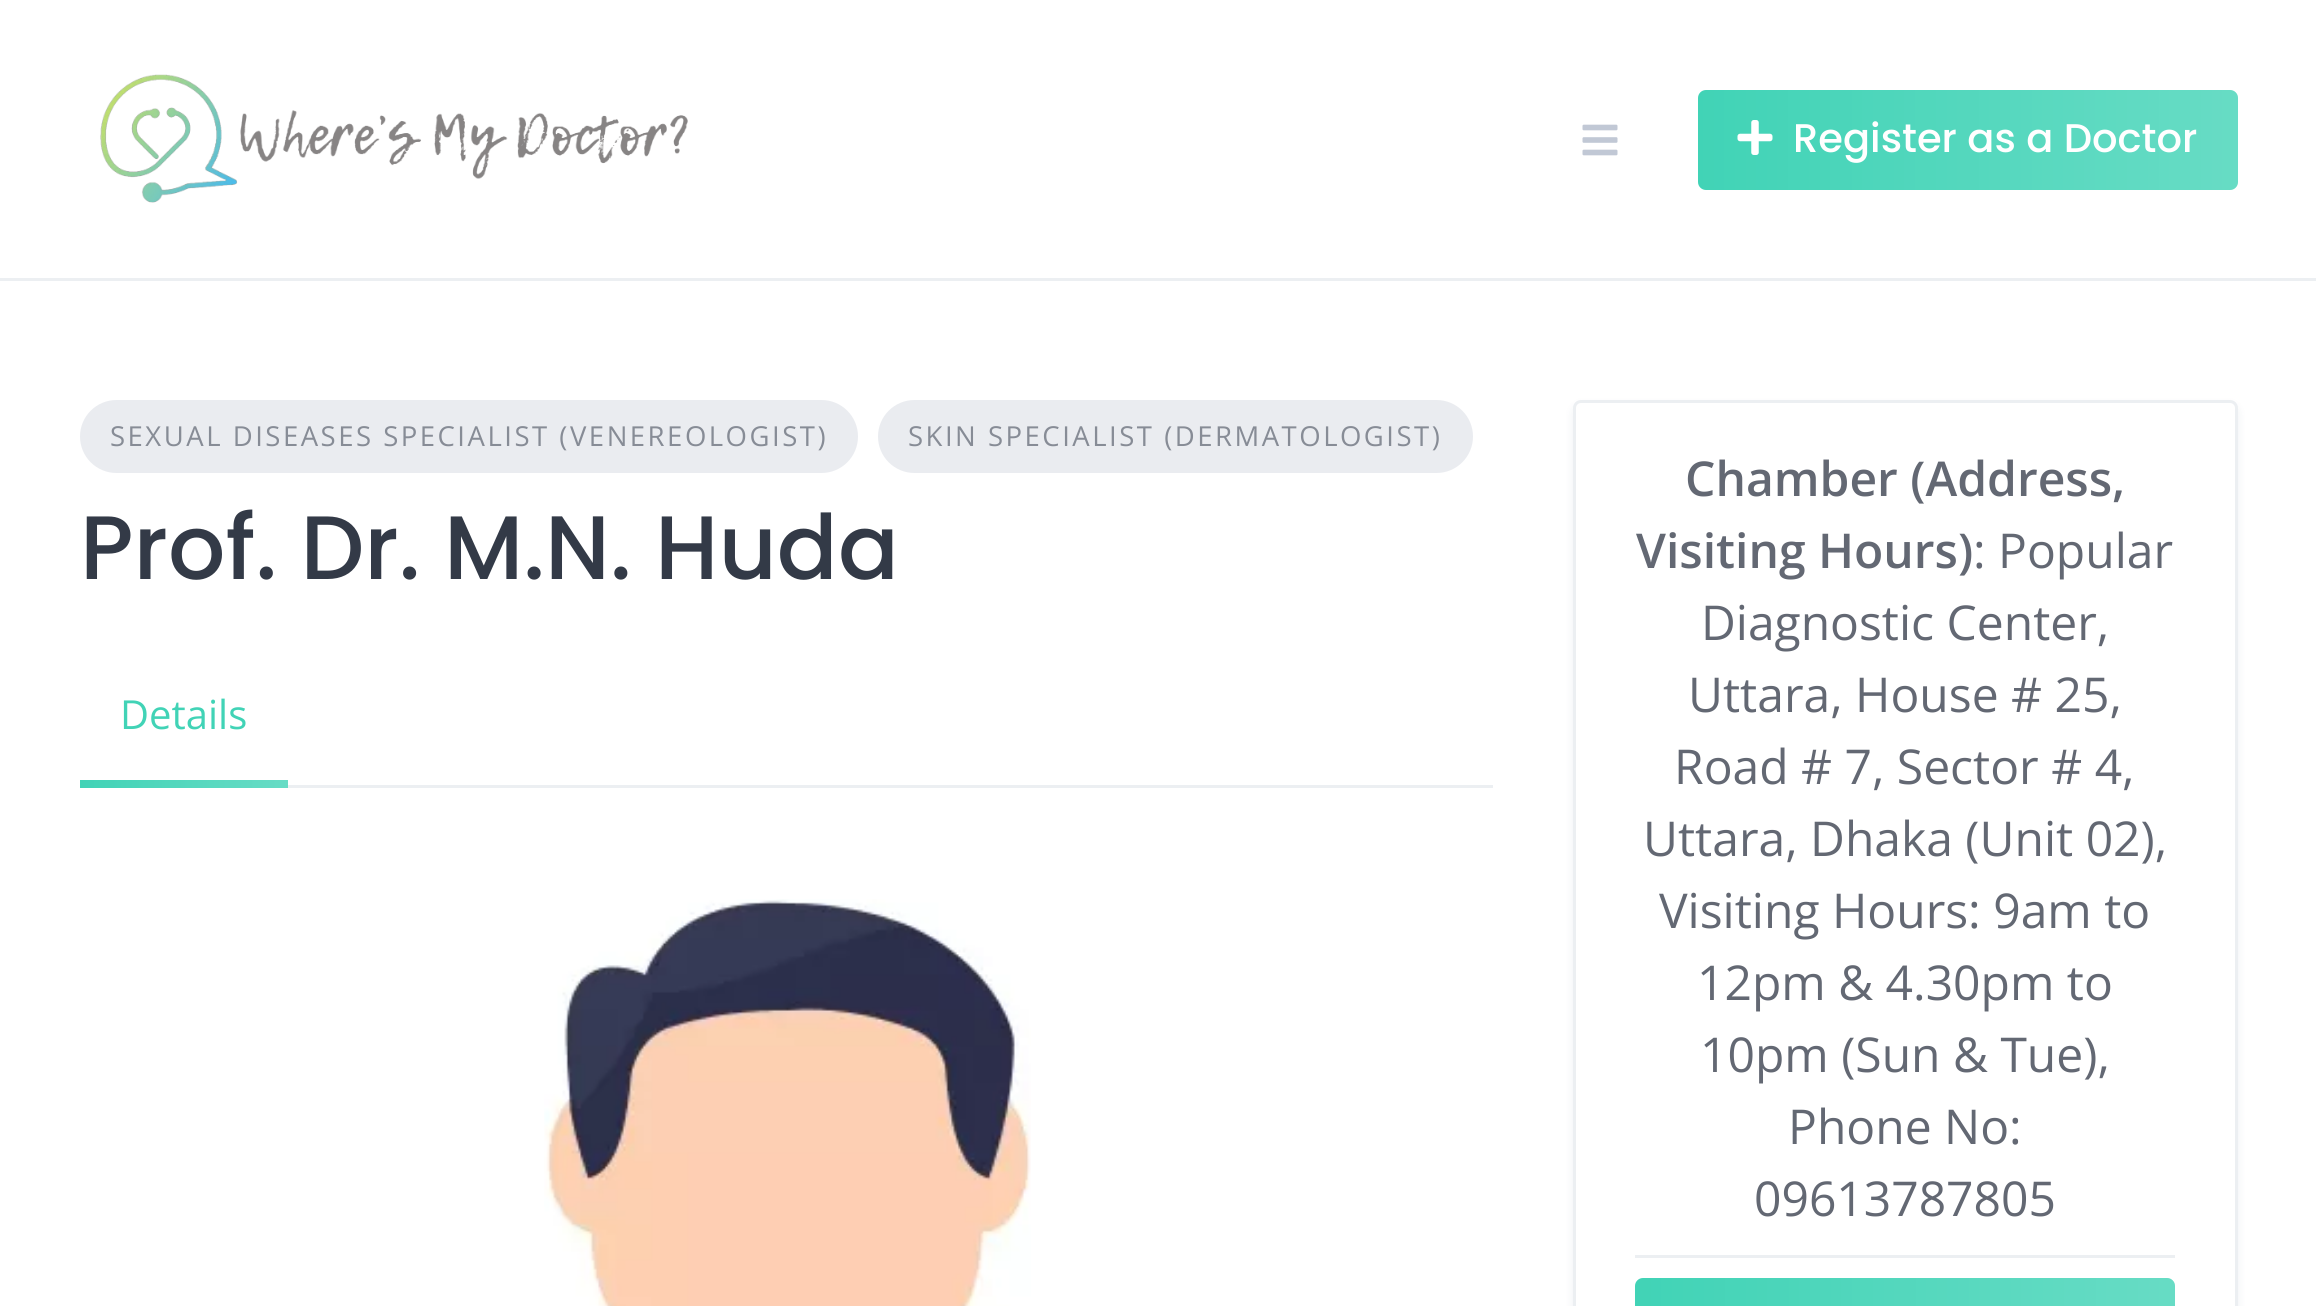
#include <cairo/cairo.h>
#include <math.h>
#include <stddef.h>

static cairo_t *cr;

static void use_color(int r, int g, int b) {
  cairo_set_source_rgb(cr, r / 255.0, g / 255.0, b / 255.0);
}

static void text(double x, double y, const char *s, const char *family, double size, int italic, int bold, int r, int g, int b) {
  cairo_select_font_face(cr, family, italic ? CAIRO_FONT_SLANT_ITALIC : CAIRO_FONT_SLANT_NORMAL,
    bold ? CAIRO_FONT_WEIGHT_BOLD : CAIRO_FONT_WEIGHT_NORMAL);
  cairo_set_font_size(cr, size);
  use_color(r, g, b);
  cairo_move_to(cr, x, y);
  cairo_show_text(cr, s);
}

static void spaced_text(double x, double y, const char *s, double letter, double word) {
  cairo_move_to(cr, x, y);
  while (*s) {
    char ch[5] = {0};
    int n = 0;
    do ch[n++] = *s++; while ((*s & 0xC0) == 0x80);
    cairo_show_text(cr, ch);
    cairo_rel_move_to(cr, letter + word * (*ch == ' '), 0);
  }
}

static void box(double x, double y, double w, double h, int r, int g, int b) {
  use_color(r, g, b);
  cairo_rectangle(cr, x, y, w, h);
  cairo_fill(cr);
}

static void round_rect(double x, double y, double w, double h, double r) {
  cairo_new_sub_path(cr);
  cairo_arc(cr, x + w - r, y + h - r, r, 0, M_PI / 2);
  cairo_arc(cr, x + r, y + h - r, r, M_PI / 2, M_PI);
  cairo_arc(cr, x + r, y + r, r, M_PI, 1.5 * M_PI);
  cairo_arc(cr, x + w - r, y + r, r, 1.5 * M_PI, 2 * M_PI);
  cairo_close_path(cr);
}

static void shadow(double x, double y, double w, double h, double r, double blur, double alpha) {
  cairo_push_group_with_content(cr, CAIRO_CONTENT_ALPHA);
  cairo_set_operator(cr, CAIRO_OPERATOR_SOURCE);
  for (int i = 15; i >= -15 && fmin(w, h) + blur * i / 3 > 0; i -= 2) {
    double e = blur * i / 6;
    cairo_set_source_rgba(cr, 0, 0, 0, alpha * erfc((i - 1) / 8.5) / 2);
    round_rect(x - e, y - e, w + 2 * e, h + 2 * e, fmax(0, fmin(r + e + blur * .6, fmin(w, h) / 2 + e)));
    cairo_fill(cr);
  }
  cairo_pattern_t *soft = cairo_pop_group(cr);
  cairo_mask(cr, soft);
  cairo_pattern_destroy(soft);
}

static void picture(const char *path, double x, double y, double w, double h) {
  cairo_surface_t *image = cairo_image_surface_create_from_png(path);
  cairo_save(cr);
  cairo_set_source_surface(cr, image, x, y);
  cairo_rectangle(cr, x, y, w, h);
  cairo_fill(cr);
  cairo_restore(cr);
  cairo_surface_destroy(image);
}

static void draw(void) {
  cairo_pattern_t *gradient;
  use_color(255, 255, 255);
  cairo_paint(cr);
  box(0, 278, 2316, 3, 236, 239, 242);
  picture("img_01.png", 100, 74, 588, 129);
  picture("img_02.png", 1582, 124, 36, 32);
  use_color(65, 211, 182);
  round_rect(1698, 90, 540, 100, 8);
  cairo_fill(cr);
  gradient = cairo_pattern_create_linear(1698, 140, 2238, 140);
  cairo_pattern_add_color_stop_rgba(gradient, 0, 1, 1, 1, 0);
  cairo_pattern_add_color_stop_rgba(gradient, 1, 1, 1, 1, 0.2);
  cairo_set_source(cr, gradient);
  cairo_pattern_destroy(gradient);
  round_rect(1698, 90, 540, 100, 8);
  cairo_fill(cr);
  picture("img_03.png", 1737, 120, 36, 35);
  use_color(234, 236, 240);
  round_rect(80, 400, 778, 73, 36.5);
  cairo_fill(cr);
  round_rect(878, 400, 595, 73, 36.5);
  cairo_fill(cr);
  box(288, 785, 1205, 3, 236, 239, 242);
  gradient = cairo_pattern_create_linear(80, 784, 288, 784);
  cairo_pattern_add_color_stop_rgba(gradient, 0, 0.255, 0.827, 0.714, 1);
  cairo_pattern_add_color_stop_rgba(gradient, 1, 0.404, 0.863, 0.773, 1);
  cairo_set_source(cr, gradient);
  cairo_pattern_destroy(gradient);
  cairo_rectangle(cr, 80, 780, 208, 8);
  cairo_fill(cr);
  picture("img_04.png", 544, 899, 487, 407);
  use_color(7, 36, 86);
  shadow(1573, 405, 665, 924, 8, 5, 0.07);
  use_color(255, 255, 255);
  round_rect(1574.5, 401.5, 662, 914, 6.5);
  cairo_fill_preserve(cr);
  use_color(236, 239, 242);
  cairo_set_line_width(cr, 3);
  cairo_stroke(cr);
  box(1635, 1255, 540, 3, 236, 239, 242);
  use_color(65, 211, 182);
  round_rect(1635, 1278, 540, 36, 8);
  cairo_fill(cr);
  gradient = cairo_pattern_create_linear(1635, 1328, 2175, 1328);
  cairo_pattern_add_color_stop_rgba(gradient, 0, 1, 1, 1, 0);
  cairo_pattern_add_color_stop_rgba(gradient, 1, 1, 1, 1, 0.2);
  cairo_set_source(cr, gradient);
  cairo_pattern_destroy(gradient);
  round_rect(1635, 1278, 540, 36, 8);
  cairo_fill(cr);
  text(1793, 152, "Register as a Doctor", "Poppins Medium", 40, 0, 0, 255, 255, 255);
  cairo_select_font_face(cr, "Open Sans", CAIRO_FONT_SLANT_NORMAL, CAIRO_FONT_WEIGHT_NORMAL);
  cairo_set_font_size(cr, 27.5);
  use_color(135, 140, 150);
  spaced_text(110, 446, "SEXUAL DISEASES SPECIALIST (VENEREOLOGIST)", 2.5, 0);
  spaced_text(908, 446, "SKIN SPECIALIST (DERMATOLOGIST)", 2.5, 0);
  text(80, 579, "Prof. Dr. M.N. Huda", "Poppins Medium", 90, 0, 0, 51, 58, 71);
  text(120, 729, "Details", "Open Sans", 40, 0, 0, 65, 211, 182);
  text(1685, 496, "Chamber (Address,", "Open Sans SemiBold", 48, 0, 0, 99, 104, 115);
  text(1636, 568, "Visiting Hours)", "Open Sans SemiBold", 48, 0, 0, 99, 104, 115);
  text(1973, 568, ": Popular", "Open Sans", 48, 0, 0, 99, 104, 115);
  text(1701, 640, "Diagnostic Center,", "Open Sans", 48, 0, 0, 99, 104, 115);
  text(1688, 712, "Uttara, House # 25,", "Open Sans", 48, 0, 0, 99, 104, 115);
  text(1674, 784, "Road # 7, Sector # 4,", "Open Sans", 48, 0, 0, 99, 104, 115);
  text(1643, 856, "Uttara, Dhaka (Unit 02),", "Open Sans", 48, 0, 0, 99, 104, 115);
  text(1659, 928, "Visiting Hours: 9am to", "Open Sans", 48, 0, 0, 99, 104, 115);
  text(1697, 1000, "12pm & 4.30pm to", "Open Sans", 48, 0, 0, 99, 104, 115);
  text(1700, 1072, "10pm (Sun & Tue),", "Open Sans", 48, 0, 0, 99, 104, 115);
  text(1788, 1144, "Phone No:", "Open Sans", 48, 0, 0, 99, 104, 115);
  text(1754, 1216, "09613787805", "Open Sans", 48, 0, 0, 99, 104, 115);
}

int main(void) {
  cairo_surface_t *surface = cairo_image_surface_create(CAIRO_FORMAT_RGB24, 2316, 1306);
  cr = cairo_create(surface);
  cairo_font_options_t *options = cairo_font_options_create();
  cairo_font_options_set_hint_metrics(options, CAIRO_HINT_METRICS_OFF);
  cairo_font_options_set_hint_style(options, CAIRO_HINT_STYLE_NONE);
  cairo_set_font_options(cr, options);
  cairo_set_miter_limit(cr, 4);
  draw();
  cairo_surface_write_to_png(surface, "out.png");
  cairo_font_options_destroy(options);
  cairo_destroy(cr);
  cairo_surface_destroy(surface);
  return 0;
}
